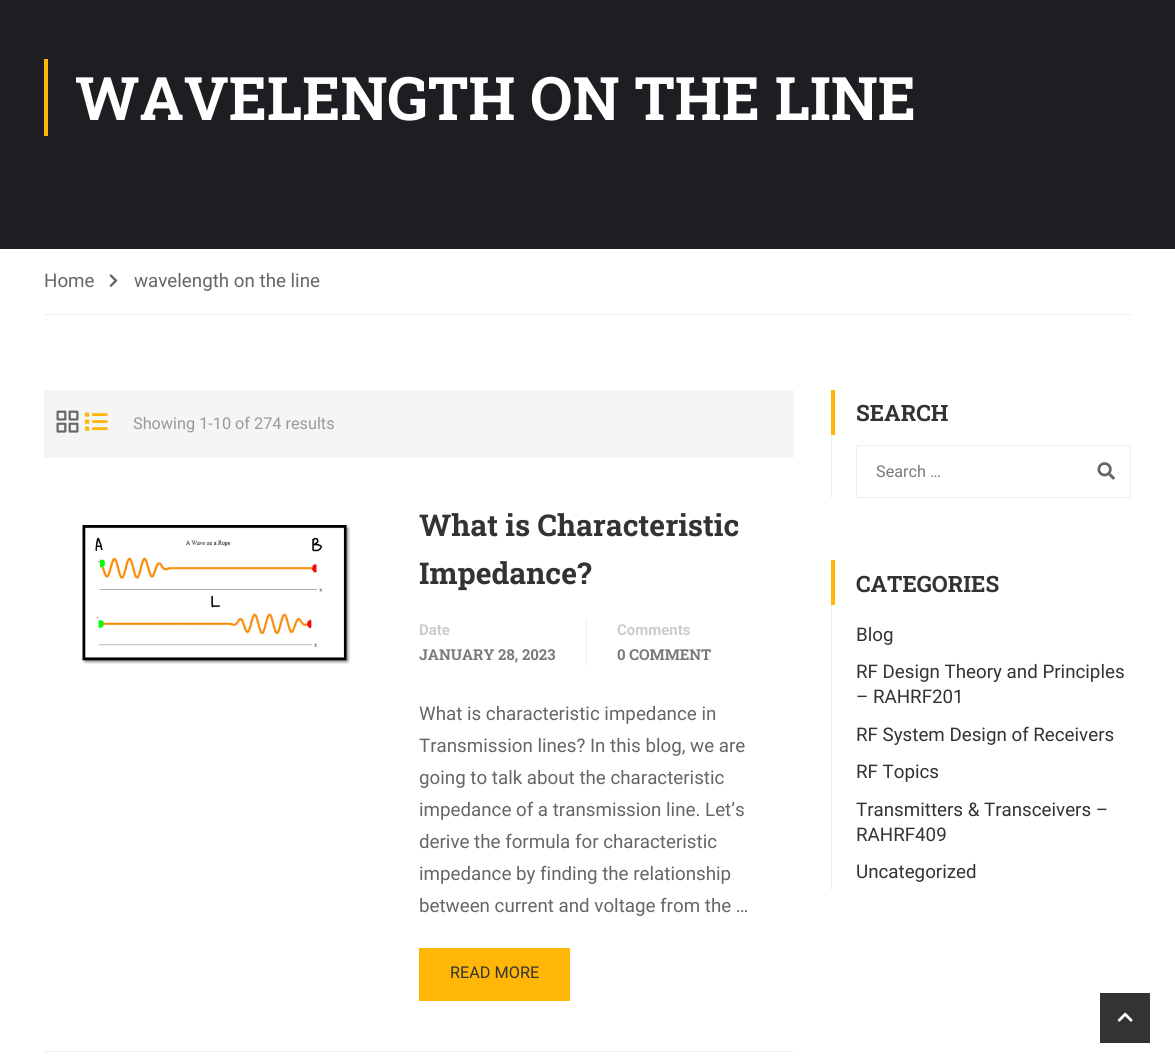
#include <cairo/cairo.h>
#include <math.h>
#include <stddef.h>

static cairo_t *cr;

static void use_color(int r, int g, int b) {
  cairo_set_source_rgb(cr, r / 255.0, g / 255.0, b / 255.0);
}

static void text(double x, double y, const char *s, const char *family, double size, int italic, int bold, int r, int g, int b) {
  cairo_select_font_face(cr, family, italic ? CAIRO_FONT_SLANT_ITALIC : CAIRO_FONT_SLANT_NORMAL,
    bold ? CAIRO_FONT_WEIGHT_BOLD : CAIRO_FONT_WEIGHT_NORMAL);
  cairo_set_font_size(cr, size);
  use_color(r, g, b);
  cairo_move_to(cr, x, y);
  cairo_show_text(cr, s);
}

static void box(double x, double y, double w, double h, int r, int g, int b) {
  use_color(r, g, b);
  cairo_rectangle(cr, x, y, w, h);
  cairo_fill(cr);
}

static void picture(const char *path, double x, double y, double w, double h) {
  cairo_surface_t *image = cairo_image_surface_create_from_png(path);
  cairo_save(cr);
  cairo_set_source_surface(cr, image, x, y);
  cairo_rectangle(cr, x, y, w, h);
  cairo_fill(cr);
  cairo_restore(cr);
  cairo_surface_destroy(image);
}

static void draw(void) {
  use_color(255, 255, 255);
  cairo_paint(cr);
  box(0, 0, 1175, 249, 28, 30, 34);
  box(44, 59, 4, 77, 255, 182, 6);
  box(44, 314, 1087, 1, 238, 238, 238);
  picture("img_01.png", 109, 274, 9, 13);
  box(44, 390, 750, 68, 245, 245, 245);
  picture("img_02.png", 56, 410, 23, 23);
  picture("img_03.png", 85, 412, 23, 19);
  box(44, 1051, 750, 1, 238, 238, 238);
  picture("img_04.png", 82, 525, 269, 139);
  box(586, 619, 1, 47, 238, 238, 238);
  box(419, 948, 151, 53, 255, 182, 6);
  box(831, 390, 4, 45, 255, 182, 6);
  box(831, 435, 1, 63, 238, 238, 238);
  cairo_rectangle(cr, 856.5, 445.5, 274, 52);
  cairo_set_line_width(cr, 1);
  cairo_stroke(cr);
  picture("img_05.png", 1097, 462, 18, 18);
  box(831, 560, 4, 45, 255, 182, 6);
  box(831, 605, 1, 285, 238, 238, 238);
  box(1100, 993, 50, 50, 51, 51, 51);
  picture("img_06.png", 1117, 1012, 16, 10);
  text(75, 120, "WAVELENGTH ON THE LINE", "Roboto Slab", 60, 0, 1, 255, 255, 255);
  text(44, 287, "Home", "Roboto", 18.75, 0, 0, 102, 102, 102);
  text(134, 287, "wavelength on the line", "Roboto", 18.75, 0, 0, 102, 102, 102);
  text(133, 429, "Showing 1-10 of 274 results", "Roboto", 16.25, 0, 0, 153, 153, 153);
  text(419, 536, "What is Characteristic", "Roboto Slab", 30, 0, 1, 51, 51, 51);
  text(419, 584, "Impedance?", "Roboto Slab", 30, 0, 1, 51, 51, 51);
  text(419, 635, "Date", "Roboto", 15, 0, 1, 204, 204, 204);
  text(419, 660, "JANUARY 28, 2023", "Roboto Slab", 15, 0, 1, 122, 122, 122);
  text(617, 635, "Comments", "Roboto", 15, 0, 1, 204, 204, 204);
  text(617, 660, "0 COMMENT", "Roboto Slab", 15, 0, 1, 122, 122, 122);
  text(419, 720, "What is characteristic impedance in", "Roboto", 18.75, 0, 0, 102, 102, 102);
  text(419, 752, "Transmission lines? In this blog, we are", "Roboto", 18.75, 0, 0, 102, 102, 102);
  text(419, 784, "going to talk about the characteristic", "Roboto", 18.75, 0, 0, 102, 102, 102);
  text(419, 816, "impedance of a transmission line. Let’s", "Roboto", 18.75, 0, 0, 102, 102, 102);
  text(419, 848, "derive the formula for characteristic", "Roboto", 18.75, 0, 0, 102, 102, 102);
  text(419, 880, "impedance by finding the relationship", "Roboto", 18.75, 0, 0, 102, 102, 102);
  text(419, 912, "between current and voltage from the …", "Roboto", 18.75, 0, 0, 102, 102, 102);
  text(450, 978, "READ MORE", "Roboto", 16.25, 0, 0, 51, 51, 51);
  text(856, 421, "SEARCH", "Roboto Slab", 22.5, 0, 1, 51, 51, 51);
  text(876, 477, "Search …", "Roboto", 16.25, 0, 0, 122, 122, 122);
  text(856, 592, "CATEGORIES", "Roboto Slab", 22.5, 0, 1, 51, 51, 51);
  text(856, 641, "Blog", "Roboto", 18.75, 0, 0, 51, 51, 51);
  text(856, 678, "RF Design Theory and Principles", "Roboto", 18.75, 0, 0, 51, 51, 51);
  text(856, 703, "– RAHRF201", "Roboto", 18.75, 0, 0, 51, 51, 51);
  text(856, 741, "RF System Design of Receivers", "Roboto", 18.75, 0, 0, 51, 51, 51);
  text(856, 778, "RF Topics", "Roboto", 18.75, 0, 0, 51, 51, 51);
  text(856, 816, "Transmitters & Transceivers –", "Roboto", 18.75, 0, 0, 51, 51, 51);
  text(856, 841, "RAHRF409", "Roboto", 18.75, 0, 0, 51, 51, 51);
  text(856, 878, "Uncategorized", "Roboto", 18.75, 0, 0, 51, 51, 51);
}

int main(void) {
  cairo_surface_t *surface = cairo_image_surface_create(CAIRO_FORMAT_RGB24, 1175, 1061);
  cr = cairo_create(surface);
  cairo_font_options_t *options = cairo_font_options_create();
  cairo_font_options_set_hint_metrics(options, CAIRO_HINT_METRICS_OFF);
  cairo_font_options_set_hint_style(options, CAIRO_HINT_STYLE_NONE);
  cairo_set_font_options(cr, options);
  cairo_set_miter_limit(cr, 4);
  draw();
  cairo_surface_write_to_png(surface, "out.png");
  cairo_font_options_destroy(options);
  cairo_destroy(cr);
  cairo_surface_destroy(surface);
  return 0;
}
